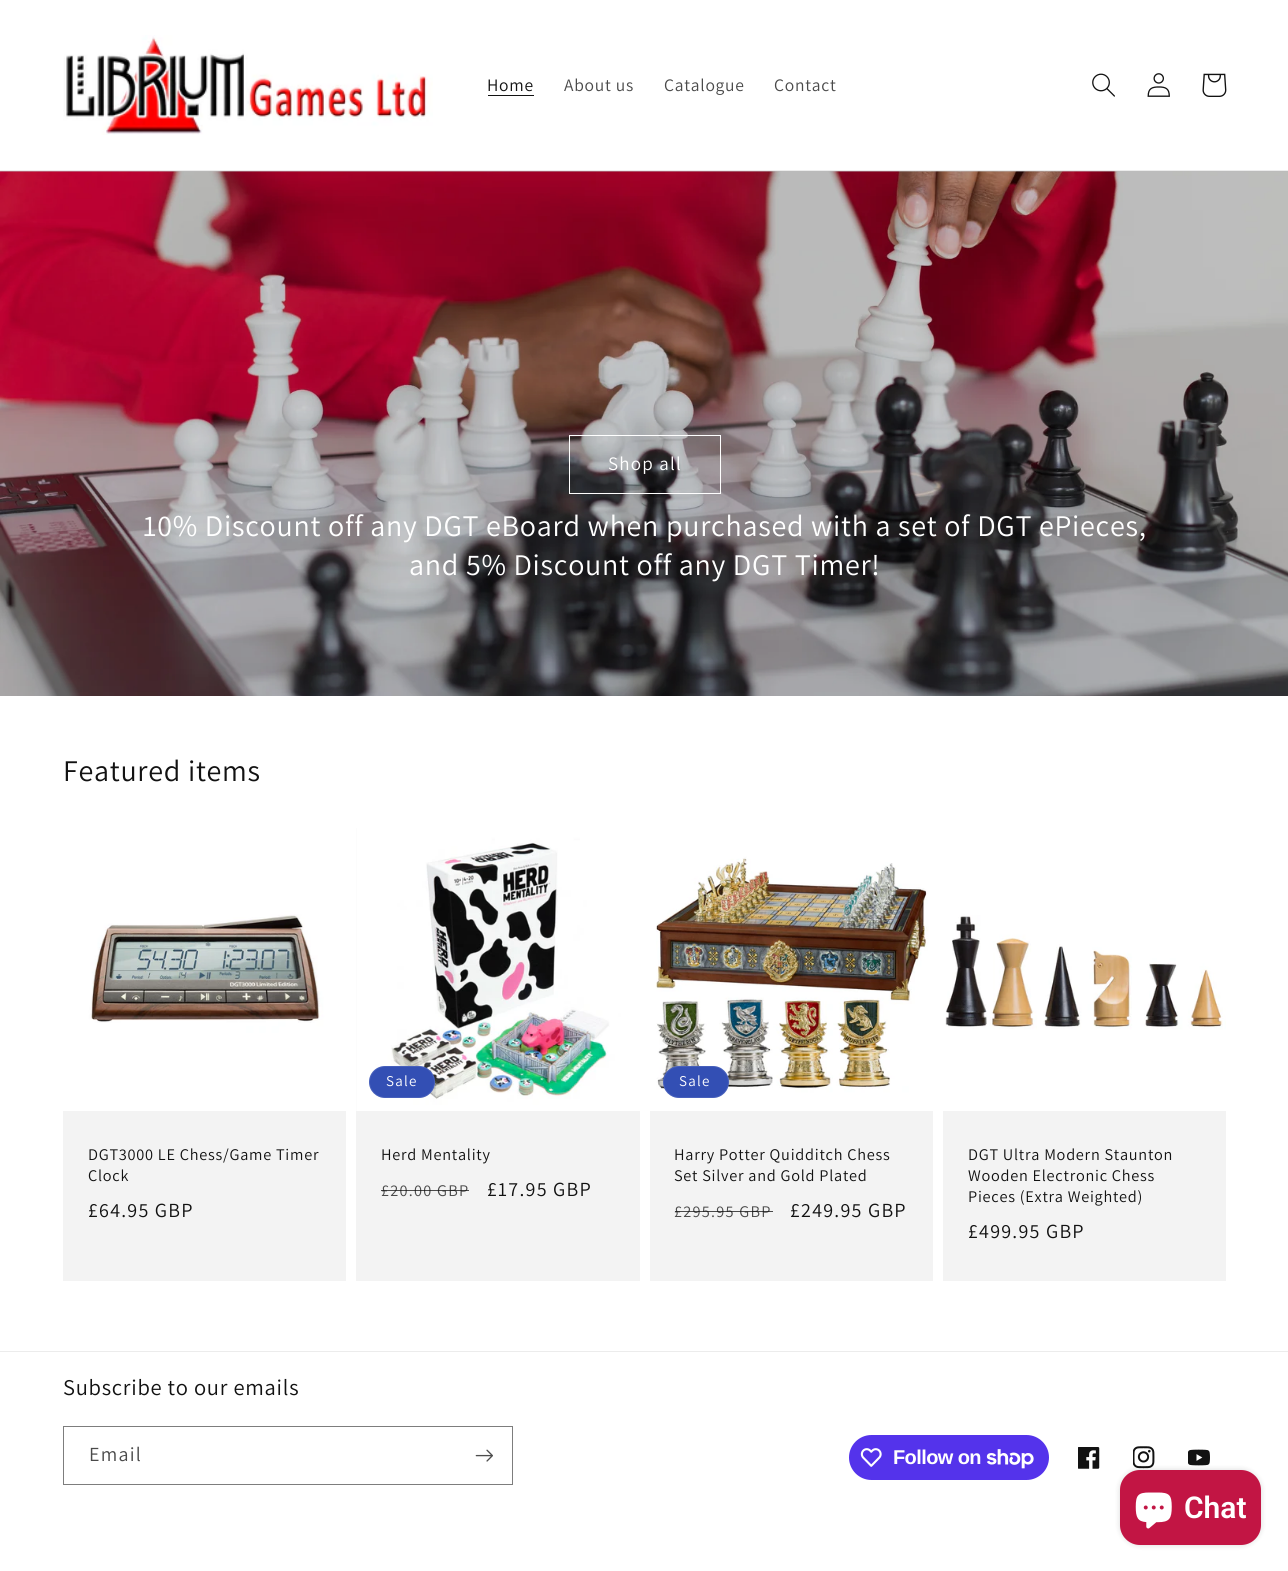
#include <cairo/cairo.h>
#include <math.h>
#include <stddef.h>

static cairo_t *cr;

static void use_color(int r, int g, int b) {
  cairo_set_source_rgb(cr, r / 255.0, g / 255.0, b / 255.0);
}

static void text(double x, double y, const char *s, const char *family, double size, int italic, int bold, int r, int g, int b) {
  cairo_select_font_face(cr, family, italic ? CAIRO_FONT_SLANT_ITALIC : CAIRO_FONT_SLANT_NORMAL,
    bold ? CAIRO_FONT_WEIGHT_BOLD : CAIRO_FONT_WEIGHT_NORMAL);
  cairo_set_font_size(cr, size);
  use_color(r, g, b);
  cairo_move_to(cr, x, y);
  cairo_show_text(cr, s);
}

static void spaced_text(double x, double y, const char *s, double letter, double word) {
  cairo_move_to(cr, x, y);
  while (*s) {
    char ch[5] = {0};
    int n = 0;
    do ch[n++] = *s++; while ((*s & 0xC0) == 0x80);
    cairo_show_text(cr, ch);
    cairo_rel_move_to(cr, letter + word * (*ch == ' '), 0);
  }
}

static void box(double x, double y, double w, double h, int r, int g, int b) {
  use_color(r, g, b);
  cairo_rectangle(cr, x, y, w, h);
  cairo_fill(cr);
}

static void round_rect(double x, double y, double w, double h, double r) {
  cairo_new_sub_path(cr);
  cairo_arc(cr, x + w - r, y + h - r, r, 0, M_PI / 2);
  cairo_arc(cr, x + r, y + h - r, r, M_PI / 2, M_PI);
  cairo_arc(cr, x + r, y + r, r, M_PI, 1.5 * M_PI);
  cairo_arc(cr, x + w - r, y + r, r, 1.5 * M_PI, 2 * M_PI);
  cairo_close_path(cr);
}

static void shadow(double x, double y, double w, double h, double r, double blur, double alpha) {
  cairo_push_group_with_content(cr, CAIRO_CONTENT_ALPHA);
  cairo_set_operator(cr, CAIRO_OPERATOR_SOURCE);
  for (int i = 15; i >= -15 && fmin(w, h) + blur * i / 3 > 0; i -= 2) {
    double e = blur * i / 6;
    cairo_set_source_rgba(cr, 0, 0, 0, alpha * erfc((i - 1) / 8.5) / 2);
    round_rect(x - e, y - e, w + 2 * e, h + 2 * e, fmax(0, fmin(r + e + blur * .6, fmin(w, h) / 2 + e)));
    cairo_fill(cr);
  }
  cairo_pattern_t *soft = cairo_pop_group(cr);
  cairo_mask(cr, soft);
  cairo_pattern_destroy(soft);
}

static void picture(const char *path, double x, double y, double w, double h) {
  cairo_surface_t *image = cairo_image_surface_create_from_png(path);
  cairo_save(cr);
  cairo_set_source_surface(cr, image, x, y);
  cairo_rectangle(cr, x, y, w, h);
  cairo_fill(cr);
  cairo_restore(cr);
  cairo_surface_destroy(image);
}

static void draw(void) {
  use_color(255, 255, 255);
  cairo_paint(cr);
  box(0, 170, 1288, 1, 236, 236, 236);
  picture("img_01.png", 63, 35, 370, 100);
  box(488, 95, 46, 1, 18, 18, 18);
  picture("img_02.png", 1092, 73, 23, 24);
  picture("img_03.png", 1147, 73, 23, 24);
  picture("img_04.png", 1202, 73, 25, 24);
  box(0, 171, 1288, 1, 186, 186, 186);
  picture("img_05.png", 0, 171, 1288, 525);
  cairo_rectangle(cr, 569.5, 435.5, 151, 58);
  use_color(255, 255, 255);
  cairo_set_line_width(cr, 1);
  cairo_stroke(cr);
  box(63, 1111, 283, 170, 243, 243, 243);
  picture("img_06.png", 63, 828, 283, 283);
  box(356, 828, 284, 453, 243, 243, 243);
  picture("img_07.png", 356, 828, 284, 283);
  use_color(51, 79, 180);
  round_rect(369, 1066, 66, 32, 16);
  cairo_fill(cr);
  round_rect(369.5, 1066.5, 65, 31, 15.5);
  cairo_set_source_rgba(cr, 1, 1, 1, 0.1);
  cairo_stroke(cr);
  box(650, 1111, 283, 170, 243, 243, 243);
  picture("img_08.png", 650, 828, 283, 283);
  use_color(51, 79, 180);
  round_rect(663, 1066, 66, 32, 16);
  cairo_fill(cr);
  round_rect(663.5, 1066.5, 65, 31, 15.5);
  cairo_set_source_rgba(cr, 1, 1, 1, 0.1);
  cairo_stroke(cr);
  box(943, 1111, 283, 170, 243, 243, 243);
  picture("img_09.png", 943, 828, 283, 283);
  box(0, 1351, 1288, 1, 236, 236, 236);
  cairo_rectangle(cr, 63.5, 1426.5, 449, 58);
  use_color(125, 125, 125);
  cairo_stroke(cr);
  picture("img_10.png", 475, 1449, 18, 13);
  use_color(84, 51, 235);
  round_rect(849, 1435, 200, 45, 22.5);
  cairo_fill(cr);
  picture("img_11.png", 860, 1448, 22, 19);
  picture("img_12.png", 986, 1449, 48, 20);
  picture("img_13.png", 1078, 1447, 22, 22);
  picture("img_14.png", 1133, 1446, 22, 23);
  picture("img_15.png", 1188, 1449, 22, 17);
  use_color(0, 0, 0);
  shadow(1120, 1470, 141, 75, 20, 3, 0.15);
  use_color(194, 21, 68);
  round_rect(1120, 1470, 141, 75, 20);
  cairo_fill(cr);
  picture("img_16.png", 1135, 1492, 37, 37);
  cairo_select_font_face(cr, "Assistant", CAIRO_FONT_SLANT_NORMAL, CAIRO_FONT_WEIGHT_NORMAL);
  cairo_set_font_size(cr, 17.5);
  use_color(18, 18, 18);
  spaced_text(487, 91, "Home", 0.75, 0);
  use_color(74, 74, 74);
  spaced_text(564, 91, "About us", 0.75, 0);
  spaced_text(664, 91, "Catalogue", 0.75, 0);
  spaced_text(774, 91, "Contact", 0.75, 0);
  cairo_set_font_size(cr, 19);
  use_color(255, 255, 255);
  spaced_text(608, 470, "Shop all", 1.25, 0);
  cairo_set_font_size(cr, 30);
  spaced_text(143, 536, "10% Discount off any DGT eBoard when purchased with a set of DGT ePieces,", 0.75, 0);
  spaced_text(409, 575, "and 5% Discount off any DGT Timer!", 0.75, 0);
  use_color(18, 18, 18);
  spaced_text(63, 781, "Featured items", 0.75, 0);
  cairo_set_font_size(cr, 16.25);
  spaced_text(88, 1160, "DGT3000 LE Chess/Game Timer", 0.75, 0);
  spaced_text(88, 1181, "Clock", 0.75, 0);
  cairo_set_font_size(cr, 20);
  spaced_text(88, 1217, "£64.95 GBP", 1.25, 0);
  cairo_set_font_size(cr, 15);
  use_color(255, 255, 255);
  spaced_text(386, 1086, "Sale", 1.25, 0);
  cairo_set_font_size(cr, 16.25);
  use_color(18, 18, 18);
  spaced_text(381, 1160, "Herd Mentality", 0.75, 0);
  use_color(74, 74, 74);
  spaced_text(381, 1196, "£20.00 GBP", 1.25, 0);
  cairo_set_source_rgba(cr, 0.071, 0.071, 0.071, 0.75);
  cairo_rectangle(cr, 381, 1190, 88, 1);
  cairo_fill(cr);
  cairo_set_font_size(cr, 20);
  use_color(18, 18, 18);
  spaced_text(487, 1196, "£17.95 GBP", 1.25, 0);
  cairo_set_font_size(cr, 15);
  use_color(255, 255, 255);
  spaced_text(679, 1086, "Sale", 1.25, 0);
  cairo_set_font_size(cr, 16.25);
  use_color(18, 18, 18);
  spaced_text(674, 1160, "Harry Potter Quidditch Chess", 0.75, 0);
  spaced_text(674, 1181, "Set Silver and Gold Plated", 0.75, 0);
  use_color(74, 74, 74);
  spaced_text(674, 1217, "£295.95 GBP", 1.25, 0);
  cairo_set_source_rgba(cr, 0.071, 0.071, 0.071, 0.75);
  cairo_rectangle(cr, 675, 1211, 98, 1);
  cairo_fill(cr);
  cairo_set_font_size(cr, 20);
  use_color(18, 18, 18);
  spaced_text(790, 1217, "£249.95 GBP", 1.25, 0);
  cairo_set_font_size(cr, 16.25);
  spaced_text(968, 1160, "DGT Ultra Modern Staunton", 0.75, 0);
  spaced_text(968, 1181, "Wooden Electronic Chess", 0.75, 0);
  spaced_text(968, 1202, "Pieces (Extra Weighted)", 0.75, 0);
  cairo_set_font_size(cr, 20);
  spaced_text(968, 1238, "£499.95 GBP", 1.25, 0);
  cairo_set_font_size(cr, 22.5);
  spaced_text(63, 1395, "Subscribe to our emails", 0.75, 0);
  cairo_set_font_size(cr, 20);
  use_color(74, 74, 74);
  spaced_text(89, 1461, "Email", 1.25, 0);
  cairo_select_font_face(cr, "Liberation Sans", CAIRO_FONT_SLANT_NORMAL, CAIRO_FONT_WEIGHT_BOLD);
  use_color(255, 255, 255);
  spaced_text(893, 1464, "Follow on", -0.6, 0);
  text(1184, 1518, "Chat", "Roboto SemiBold", 30, 0, 0, 255, 255, 255);
}

int main(void) {
  cairo_surface_t *surface = cairo_image_surface_create(CAIRO_FORMAT_RGB24, 1288, 1571);
  cr = cairo_create(surface);
  cairo_font_options_t *options = cairo_font_options_create();
  cairo_font_options_set_hint_metrics(options, CAIRO_HINT_METRICS_OFF);
  cairo_font_options_set_hint_style(options, CAIRO_HINT_STYLE_NONE);
  cairo_set_font_options(cr, options);
  cairo_set_miter_limit(cr, 4);
  draw();
  cairo_surface_write_to_png(surface, "out.png");
  cairo_font_options_destroy(options);
  cairo_destroy(cr);
  cairo_surface_destroy(surface);
  return 0;
}
